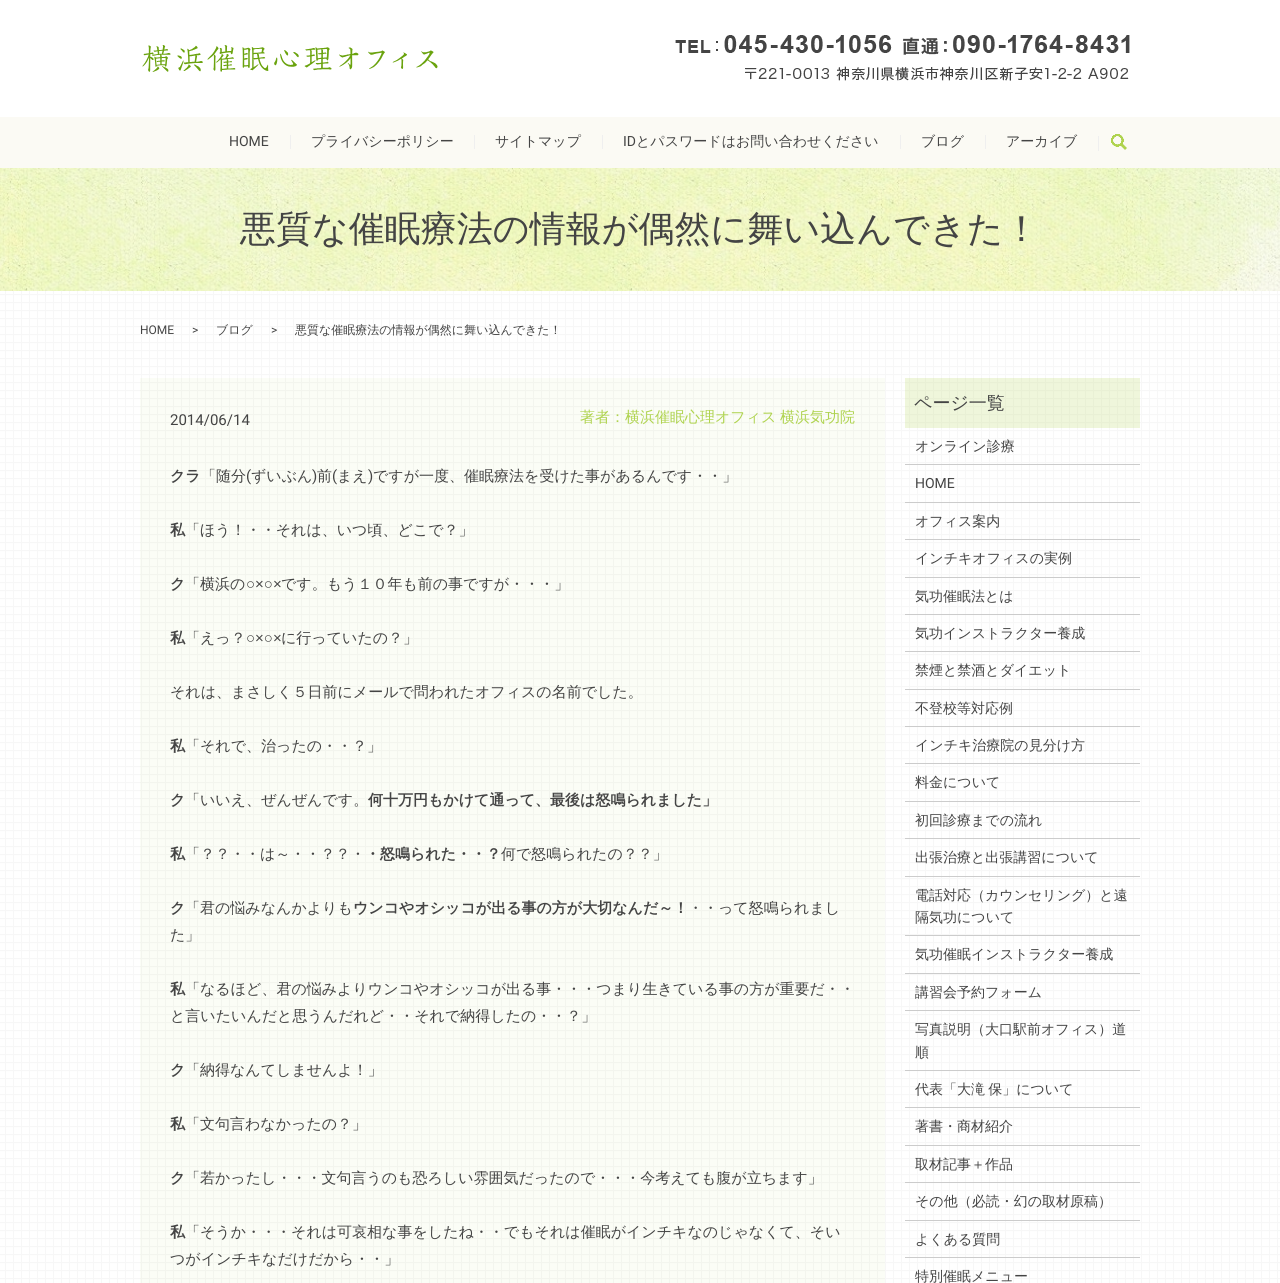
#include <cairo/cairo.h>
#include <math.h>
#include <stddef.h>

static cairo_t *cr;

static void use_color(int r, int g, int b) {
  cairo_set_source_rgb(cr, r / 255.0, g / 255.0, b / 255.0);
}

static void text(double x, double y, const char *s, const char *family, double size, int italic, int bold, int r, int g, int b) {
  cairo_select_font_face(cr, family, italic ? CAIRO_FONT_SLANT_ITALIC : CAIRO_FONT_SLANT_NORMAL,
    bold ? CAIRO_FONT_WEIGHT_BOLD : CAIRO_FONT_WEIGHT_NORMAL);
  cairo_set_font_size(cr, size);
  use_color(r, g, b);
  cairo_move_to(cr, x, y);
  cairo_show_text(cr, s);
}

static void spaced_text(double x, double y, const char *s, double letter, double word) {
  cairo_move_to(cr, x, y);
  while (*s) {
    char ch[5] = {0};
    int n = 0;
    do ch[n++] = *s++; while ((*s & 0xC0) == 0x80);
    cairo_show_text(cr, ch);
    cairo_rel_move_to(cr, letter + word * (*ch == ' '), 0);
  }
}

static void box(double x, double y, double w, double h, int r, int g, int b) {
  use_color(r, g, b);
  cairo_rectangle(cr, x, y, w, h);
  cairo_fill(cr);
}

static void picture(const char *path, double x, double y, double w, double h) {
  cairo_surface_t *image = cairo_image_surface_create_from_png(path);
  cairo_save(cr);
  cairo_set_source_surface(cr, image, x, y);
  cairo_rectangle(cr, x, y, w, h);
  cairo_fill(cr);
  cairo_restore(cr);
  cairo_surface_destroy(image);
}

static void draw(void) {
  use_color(255, 255, 255);
  cairo_paint(cr);
  picture("img_01.png", 0, 291, 1280, 992);
  picture("img_02.png", 142, 45, 296, 27);
  picture("img_03.png", 675, 35, 455, 46);
  box(0, 117, 1280, 51, 251, 250, 244);
  box(290, 135, 1, 14, 239, 239, 239);
  box(474, 135, 1, 14, 239, 239, 239);
  box(602, 135, 1, 14, 239, 239, 239);
  box(900, 135, 1, 14, 239, 239, 239);
  box(985, 135, 1, 14, 239, 239, 239);
  picture("img_04.png", 1111, 134, 16, 16);
  box(1098, 136, 1, 15, 239, 239, 239);
  picture("img_05.png", 0, 168, 1280, 123);
  cairo_set_source_rgba(cr, 0.686, 0.827, 0.31, 0.05);
  cairo_rectangle(cr, 140, 378, 745, 905);
  cairo_fill(cr);
  cairo_set_source_rgba(cr, 0.686, 0.827, 0.31, 0.2);
  cairo_rectangle(cr, 905, 378, 235, 50);
  cairo_fill(cr);
  box(905, 464, 235, 1, 204, 204, 204);
  box(905, 502, 235, 1, 204, 204, 204);
  box(905, 539, 235, 1, 204, 204, 204);
  box(905, 577, 235, 1, 204, 204, 204);
  box(905, 614, 235, 1, 204, 204, 204);
  box(905, 651, 235, 1, 204, 204, 204);
  box(905, 689, 235, 1, 204, 204, 204);
  box(905, 726, 235, 1, 204, 204, 204);
  box(905, 763, 235, 1, 204, 204, 204);
  box(905, 801, 235, 1, 204, 204, 204);
  box(905, 838, 235, 1, 204, 204, 204);
  box(905, 876, 235, 1, 204, 204, 204);
  box(905, 935, 235, 1, 204, 204, 204);
  box(905, 973, 235, 1, 204, 204, 204);
  box(905, 1010, 235, 1, 204, 204, 204);
  box(905, 1070, 235, 1, 204, 204, 204);
  box(905, 1107, 235, 1, 204, 204, 204);
  box(905, 1145, 235, 1, 204, 204, 204);
  box(905, 1182, 235, 1, 204, 204, 204);
  box(905, 1220, 235, 1, 204, 204, 204);
  box(905, 1257, 235, 1, 204, 204, 204);
  text(229, 146, "HOME", "Roboto", 14, 0, 0, 68, 68, 68);
  text(311, 146, "プライバシーポリシー", "WenQuanYi Zen Hei Medium", 14, 0, 0, 68, 68, 68);
  text(495, 146, "サイトマップ", "WenQuanYi Zen Hei Medium", 14, 0, 0, 68, 68, 68);
  text(623, 146, "ID", "Roboto", 14, 0, 0, 68, 68, 68);
  text(636, 146, "とパスワードはお問い合わせください", "WenQuanYi Zen Hei Medium", 14, 0, 0, 68, 68, 68);
  text(921, 146, "ブログ", "WenQuanYi Zen Hei Medium", 14, 0, 0, 68, 68, 68);
  text(1006, 146, "アーカイブ", "WenQuanYi Zen Hei Medium", 14, 0, 0, 68, 68, 68);
  text(240, 241, "悪質な催眠療法の情報が偶然に舞い込んできた！", "WenQuanYi Zen Hei Medium", 36, 0, 0, 68, 68, 68);
  text(140, 334, "HOME", "Roboto", 12, 0, 0, 68, 68, 68);
  text(192, 334, ">", "Roboto", 12, 0, 0, 68, 68, 68);
  text(216, 334, "ブログ", "WenQuanYi Zen Hei Medium", 12, 0, 0, 68, 68, 68);
  text(271, 334, ">", "Roboto", 12, 0, 0, 68, 68, 68);
  text(295, 334, "悪質な催眠療法の情報が偶然に舞い込んできた！", "WenQuanYi Zen Hei Medium", 12, 0, 0, 68, 68, 68);
  text(170, 425, "2014/06/14", "Roboto", 15, 0, 0, 68, 68, 68);
  cairo_select_font_face(cr, "WenQuanYi Zen Hei Medium", CAIRO_FONT_SLANT_NORMAL, CAIRO_FONT_WEIGHT_NORMAL);
  use_color(175, 211, 79);
  spaced_text(580, 422, "著者：横浜催眠心理オフィス 横浜気功院", 0, -1);
  text(170, 481, "クラ", "WenQuanYi Zen Hei", 15, 0, 1, 68, 68, 68);
  text(201, 481, "「随分", "WenQuanYi Zen Hei Medium", 15, 0, 0, 68, 68, 68);
  text(246, 481, "(", "Roboto", 15, 0, 0, 68, 68, 68);
  text(251, 481, "ずいぶん", "WenQuanYi Zen Hei Medium", 15, 0, 0, 68, 68, 68);
  text(312, 481, ")", "Roboto", 15, 0, 0, 68, 68, 68);
  text(317, 481, "前", "WenQuanYi Zen Hei Medium", 15, 0, 0, 68, 68, 68);
  text(332, 481, "(", "Roboto", 15, 0, 0, 68, 68, 68);
  text(337, 481, "まえ", "WenQuanYi Zen Hei Medium", 15, 0, 0, 68, 68, 68);
  text(368, 481, ")", "Roboto", 15, 0, 0, 68, 68, 68);
  text(373, 481, "ですが一度、催眠療法を受けた事があるんです・・」", "WenQuanYi Zen Hei Medium", 15, 0, 0, 68, 68, 68);
  text(170, 535, "私", "WenQuanYi Zen Hei", 15, 0, 1, 68, 68, 68);
  text(185, 535, "「ほう！・・それは、いつ頃、どこで？」", "WenQuanYi Zen Hei Medium", 15, 0, 0, 68, 68, 68);
  text(170, 589, "ク", "WenQuanYi Zen Hei", 15, 0, 1, 68, 68, 68);
  text(185, 589, "「横浜の", "WenQuanYi Zen Hei Medium", 15, 0, 0, 68, 68, 68);
  text(246, 589, "○×○×", "Liberation Sans", 15, 0, 0, 68, 68, 68);
  text(281, 589, "です。もう１０年も前の事ですが・・・」", "WenQuanYi Zen Hei Medium", 15, 0, 0, 68, 68, 68);
  text(170, 643, "私", "WenQuanYi Zen Hei", 15, 0, 1, 68, 68, 68);
  text(185, 643, "「えっ？", "WenQuanYi Zen Hei Medium", 15, 0, 0, 68, 68, 68);
  text(246, 643, "○×○×", "Liberation Sans", 15, 0, 0, 68, 68, 68);
  text(281, 643, "に行っていたの？」", "WenQuanYi Zen Hei Medium", 15, 0, 0, 68, 68, 68);
  text(170, 697, "それは、まさしく５日前にメールで問われたオフィスの名前でした。", "WenQuanYi Zen Hei Medium", 15, 0, 0, 68, 68, 68);
  text(170, 751, "私", "WenQuanYi Zen Hei", 15, 0, 1, 68, 68, 68);
  text(185, 751, "「それで、治ったの・・？」", "WenQuanYi Zen Hei Medium", 15, 0, 0, 68, 68, 68);
  text(170, 805, "ク", "WenQuanYi Zen Hei", 15, 0, 1, 68, 68, 68);
  text(185, 805, "「いいえ、ぜんぜんです。", "WenQuanYi Zen Hei Medium", 15, 0, 0, 68, 68, 68);
  text(368, 805, "何十万円もかけて通って、最後は怒鳴られました」", "WenQuanYi Zen Hei", 15, 0, 1, 68, 68, 68);
  text(170, 859, "私", "WenQuanYi Zen Hei", 15, 0, 1, 68, 68, 68);
  text(185, 859, "「？？・・は～・・？？・", "WenQuanYi Zen Hei Medium", 15, 0, 0, 68, 68, 68);
  text(365, 859, "・怒鳴られた・・？", "WenQuanYi Zen Hei", 15, 0, 1, 68, 68, 68);
  text(501, 859, "何で怒鳴られたの？？」", "WenQuanYi Zen Hei Medium", 15, 0, 0, 68, 68, 68);
  text(170, 913, "ク", "WenQuanYi Zen Hei", 15, 0, 1, 68, 68, 68);
  text(185, 913, "「君の悩みなんかよりも", "WenQuanYi Zen Hei Medium", 15, 0, 0, 68, 68, 68);
  text(353, 913, "ウンコやオシッコが出る事の方が大切なんだ～！", "WenQuanYi Zen Hei", 15, 0, 1, 68, 68, 68);
  text(688, 913, "・・って怒鳴られまし", "WenQuanYi Zen Hei Medium", 15, 0, 0, 68, 68, 68);
  text(170, 940, "た」", "WenQuanYi Zen Hei Medium", 15, 0, 0, 68, 68, 68);
  text(170, 994, "私", "WenQuanYi Zen Hei", 15, 0, 1, 68, 68, 68);
  text(185, 994, "「なるほど、君の悩みよりウンコやオシッコが出る事・・・つまり生きている事の方が重要だ・・", "WenQuanYi Zen Hei Medium", 15, 0, 0, 68, 68, 68);
  text(170, 1021, "と言いたいんだと思うんだれど・・それで納得したの・・？」", "WenQuanYi Zen Hei Medium", 15, 0, 0, 68, 68, 68);
  text(170, 1075, "ク", "WenQuanYi Zen Hei", 15, 0, 1, 68, 68, 68);
  text(185, 1075, "「納得なんてしませんよ！」", "WenQuanYi Zen Hei Medium", 15, 0, 0, 68, 68, 68);
  text(170, 1129, "私", "WenQuanYi Zen Hei", 15, 0, 1, 68, 68, 68);
  text(185, 1129, "「文句言わなかったの？」", "WenQuanYi Zen Hei Medium", 15, 0, 0, 68, 68, 68);
  text(170, 1183, "ク", "WenQuanYi Zen Hei", 15, 0, 1, 68, 68, 68);
  text(185, 1183, "「若かったし・・・文句言うのも恐ろしい雰囲気だったので・・・今考えても腹が立ちます」", "WenQuanYi Zen Hei Medium", 15, 0, 0, 68, 68, 68);
  text(170, 1237, "私", "WenQuanYi Zen Hei", 15, 0, 1, 68, 68, 68);
  text(185, 1237, "「そうか・・・それは可哀相な事をしたね・・でもそれは催眠がインチキなのじゃなくて、そい", "WenQuanYi Zen Hei Medium", 15, 0, 0, 68, 68, 68);
  text(170, 1264, "つがインチキなだけだから・・」", "WenQuanYi Zen Hei Medium", 15, 0, 0, 68, 68, 68);
  text(914, 409, "ページ一覧", "WenQuanYi Zen Hei Medium", 18, 0, 0, 68, 68, 68);
  text(915, 451, "オンライン診療", "WenQuanYi Zen Hei Medium", 14, 0, 0, 68, 68, 68);
  text(915, 488, "HOME", "Roboto", 14, 0, 0, 68, 68, 68);
  text(915, 526, "オフィス案内", "WenQuanYi Zen Hei Medium", 14, 0, 0, 68, 68, 68);
  text(915, 563, "インチキオフィスの実例", "WenQuanYi Zen Hei Medium", 14, 0, 0, 68, 68, 68);
  text(915, 601, "気功催眠法とは", "WenQuanYi Zen Hei Medium", 14, 0, 0, 68, 68, 68);
  text(915, 638, "気功インストラクター養成", "WenQuanYi Zen Hei Medium", 14, 0, 0, 68, 68, 68);
  text(915, 675, "禁煙と禁酒とダイエット", "WenQuanYi Zen Hei Medium", 14, 0, 0, 68, 68, 68);
  text(915, 713, "不登校等対応例", "WenQuanYi Zen Hei Medium", 14, 0, 0, 68, 68, 68);
  text(915, 750, "インチキ治療院の見分け方", "WenQuanYi Zen Hei Medium", 14, 0, 0, 68, 68, 68);
  text(915, 787, "料金について", "WenQuanYi Zen Hei Medium", 14, 0, 0, 68, 68, 68);
  text(915, 825, "初回診療までの流れ", "WenQuanYi Zen Hei Medium", 14, 0, 0, 68, 68, 68);
  text(915, 862, "出張治療と出張講習について", "WenQuanYi Zen Hei Medium", 14, 0, 0, 68, 68, 68);
  text(915, 900, "電話対応（カウンセリング）と遠", "WenQuanYi Zen Hei Medium", 14, 0, 0, 68, 68, 68);
  text(915, 922, "隔気功について", "WenQuanYi Zen Hei Medium", 14, 0, 0, 68, 68, 68);
  text(915, 959, "気功催眠インストラクター養成", "WenQuanYi Zen Hei Medium", 14, 0, 0, 68, 68, 68);
  text(915, 997, "講習会予約フォーム", "WenQuanYi Zen Hei Medium", 14, 0, 0, 68, 68, 68);
  text(915, 1034, "写真説明（大口駅前オフィス）道", "WenQuanYi Zen Hei Medium", 14, 0, 0, 68, 68, 68);
  text(915, 1057, "順", "WenQuanYi Zen Hei Medium", 14, 0, 0, 68, 68, 68);
  spaced_text(915, 1094, "代表「大滝 保」について", 0, -1);
  text(915, 1131, "著書・商材紹介", "WenQuanYi Zen Hei Medium", 14, 0, 0, 68, 68, 68);
  text(915, 1169, "取材記事＋作品", "WenQuanYi Zen Hei Medium", 14, 0, 0, 68, 68, 68);
  text(915, 1206, "その他（必読・幻の取材原稿）", "WenQuanYi Zen Hei Medium", 14, 0, 0, 68, 68, 68);
  text(915, 1244, "よくある質問", "WenQuanYi Zen Hei Medium", 14, 0, 0, 68, 68, 68);
  text(915, 1281, "特別催眠メニュー", "WenQuanYi Zen Hei Medium", 14, 0, 0, 68, 68, 68);
}

int main(void) {
  cairo_surface_t *surface = cairo_image_surface_create(CAIRO_FORMAT_RGB24, 1280, 1283);
  cr = cairo_create(surface);
  cairo_font_options_t *options = cairo_font_options_create();
  cairo_font_options_set_hint_metrics(options, CAIRO_HINT_METRICS_OFF);
  cairo_font_options_set_hint_style(options, CAIRO_HINT_STYLE_NONE);
  cairo_set_font_options(cr, options);
  cairo_set_miter_limit(cr, 4);
  draw();
  cairo_surface_write_to_png(surface, "out.png");
  cairo_font_options_destroy(options);
  cairo_destroy(cr);
  cairo_surface_destroy(surface);
  return 0;
}
